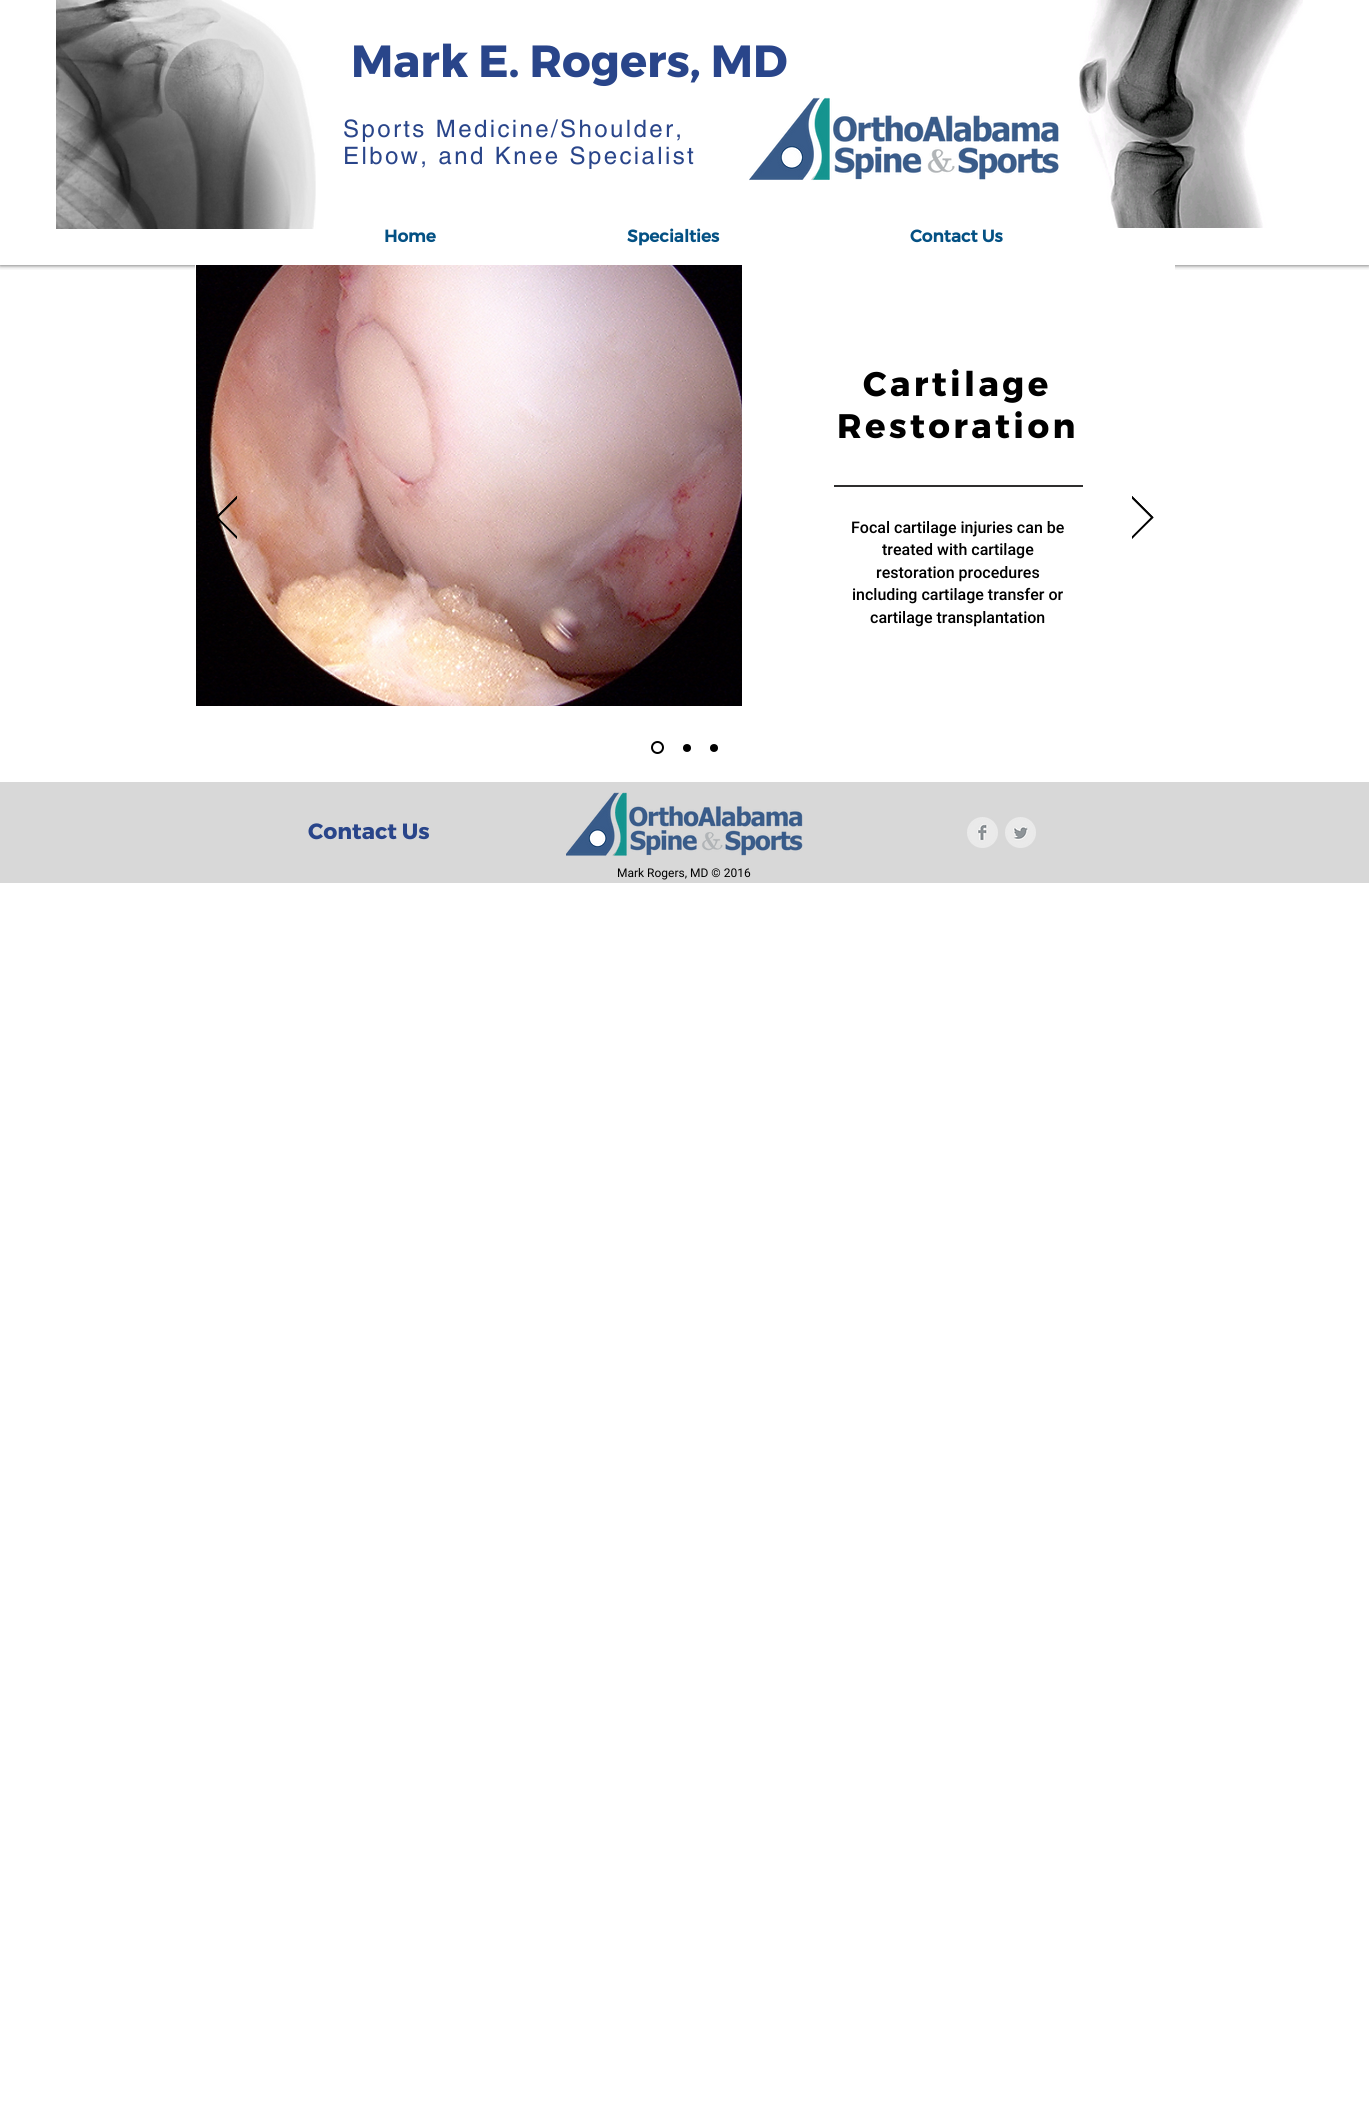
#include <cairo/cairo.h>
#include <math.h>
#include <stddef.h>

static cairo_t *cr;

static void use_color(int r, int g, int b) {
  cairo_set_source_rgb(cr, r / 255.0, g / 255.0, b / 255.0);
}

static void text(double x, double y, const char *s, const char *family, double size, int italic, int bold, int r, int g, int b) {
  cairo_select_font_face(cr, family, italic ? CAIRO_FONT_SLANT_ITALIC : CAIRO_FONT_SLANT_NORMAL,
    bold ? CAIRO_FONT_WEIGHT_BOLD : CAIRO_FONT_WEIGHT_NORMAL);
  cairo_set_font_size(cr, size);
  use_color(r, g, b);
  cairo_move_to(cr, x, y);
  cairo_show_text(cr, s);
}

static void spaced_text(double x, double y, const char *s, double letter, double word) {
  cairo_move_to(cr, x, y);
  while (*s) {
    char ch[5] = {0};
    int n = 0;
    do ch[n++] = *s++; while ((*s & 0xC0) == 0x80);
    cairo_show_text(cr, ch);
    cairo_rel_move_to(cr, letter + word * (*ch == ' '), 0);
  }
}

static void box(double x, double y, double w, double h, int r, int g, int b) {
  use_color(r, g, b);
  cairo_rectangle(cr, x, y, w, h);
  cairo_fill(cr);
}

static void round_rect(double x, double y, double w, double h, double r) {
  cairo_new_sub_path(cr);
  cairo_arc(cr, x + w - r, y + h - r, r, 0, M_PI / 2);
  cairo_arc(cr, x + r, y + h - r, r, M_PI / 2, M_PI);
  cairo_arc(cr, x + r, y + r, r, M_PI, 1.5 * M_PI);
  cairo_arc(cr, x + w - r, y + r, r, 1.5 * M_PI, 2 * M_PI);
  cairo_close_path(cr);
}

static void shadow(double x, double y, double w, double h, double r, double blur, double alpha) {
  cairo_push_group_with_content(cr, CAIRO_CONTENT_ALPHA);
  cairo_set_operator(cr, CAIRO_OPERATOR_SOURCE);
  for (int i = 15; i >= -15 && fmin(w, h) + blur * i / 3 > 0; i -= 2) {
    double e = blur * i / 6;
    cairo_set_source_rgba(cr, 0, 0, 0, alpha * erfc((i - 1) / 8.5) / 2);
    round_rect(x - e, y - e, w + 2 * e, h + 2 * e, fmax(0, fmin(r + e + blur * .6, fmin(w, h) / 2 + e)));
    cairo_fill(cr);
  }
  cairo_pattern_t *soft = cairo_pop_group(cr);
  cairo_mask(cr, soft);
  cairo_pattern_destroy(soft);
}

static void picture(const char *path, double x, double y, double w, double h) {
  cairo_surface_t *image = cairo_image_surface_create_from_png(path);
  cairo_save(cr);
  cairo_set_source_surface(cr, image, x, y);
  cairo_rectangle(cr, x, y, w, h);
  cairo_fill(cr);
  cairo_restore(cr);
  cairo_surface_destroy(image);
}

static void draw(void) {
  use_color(255, 255, 255);
  cairo_paint(cr);
  cairo_save(cr);
  cairo_rectangle(cr, 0, 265, 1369, 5);
  cairo_clip(cr);
  use_color(0, 0, 0);
  shadow(0, 0, 1369, 265, 0, 2.5, 0.7);
  cairo_restore(cr);
  picture("img_01.png", 56, 0, 260, 229);
  picture("img_02.png", 1079, 0, 224, 228);
  picture("img_03.png", 749, 97, 310, 84);
  box(195, 265, 980, 5, 255, 255, 255);
  picture("img_04.png", 196, 265, 546, 441);
  cairo_save(cr);
  cairo_rectangle(cr, 216, 496, 21, 43);
  cairo_clip(cr);
  use_color(0, 0, 0);
  cairo_new_path(cr);
  cairo_move_to(cr, 237, 539);
  cairo_line_to(cr, 216, 517);
  cairo_line_to(cr, 237, 496);
  cairo_line_to(cr, 238, 497);
  cairo_line_to(cr, 217, 517);
  cairo_line_to(cr, 238, 538);
  cairo_close_path(cr);
  cairo_fill(cr);
  cairo_new_path(cr);
  cairo_move_to(cr, 237.5, 538.5);
  cairo_line_to(cr, 216, 517.5);
  cairo_line_to(cr, 237.5, 496);
  cairo_line_to(cr, 238, 497);
  cairo_line_to(cr, 217.5, 517.5);
  cairo_line_to(cr, 238, 538);
  cairo_close_path(cr);
  cairo_set_line_width(cr, 1);
  cairo_stroke(cr);
  cairo_restore(cr);
  box(834, 485, 249, 2, 47, 46, 46);
  cairo_save(cr);
  cairo_rectangle(cr, 1132, 496, 22, 43);
  cairo_clip(cr);
  use_color(0, 0, 0);
  cairo_new_path(cr);
  cairo_move_to(cr, 1132, 539);
  cairo_line_to(cr, 1153, 517);
  cairo_line_to(cr, 1132, 496);
  cairo_line_to(cr, 1131, 497);
  cairo_line_to(cr, 1152, 517);
  cairo_line_to(cr, 1131, 538);
  cairo_close_path(cr);
  cairo_fill(cr);
  cairo_new_path(cr);
  cairo_move_to(cr, 1131.5, 538.5);
  cairo_line_to(cr, 1153, 517.5);
  cairo_line_to(cr, 1131.5, 496);
  cairo_line_to(cr, 1131, 497);
  cairo_line_to(cr, 1151.5, 517.5);
  cairo_line_to(cr, 1131, 538);
  cairo_close_path(cr);
  cairo_set_line_width(cr, 1);
  cairo_stroke(cr);
  cairo_restore(cr);
  cairo_arc(cr, 657.5, 747.5, 5.5, 0, 2 * M_PI);
  use_color(0, 0, 0);
  cairo_stroke(cr);
  cairo_arc(cr, 687, 748, 4, 0, 2 * M_PI);
  cairo_fill(cr);
  cairo_arc(cr, 714, 748, 4, 0, 2 * M_PI);
  cairo_fill(cr);
  box(0, 782, 1369, 101, 216, 216, 216);
  picture("img_05.png", 566, 792, 237, 64);
  picture("img_06.png", 967, 817, 31, 31);
  picture("img_07.png", 1005, 817, 31, 31);
  text(351, 77, "Mark E. Rogers, MD", "Montserrat", 45, 0, 1, 41, 69, 138);
  cairo_select_font_face(cr, "helvetica", CAIRO_FONT_SLANT_NORMAL, CAIRO_FONT_WEIGHT_NORMAL);
  cairo_set_font_size(cr, 24);
  spaced_text(343, 137, "Sports Medicine/Shoulder,", 2.4, 0);
  spaced_text(343, 164, "Elbow, and Knee Specialist", 2.4, 0);
  text(384, 242, "Home", "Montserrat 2", 17, 0, 1, 4, 81, 132);
  text(627, 242, "Specialties", "Montserrat 2", 17, 0, 1, 4, 81, 132);
  text(910, 242, "Contact Us", "Montserrat 2", 17, 0, 1, 4, 81, 132);
  cairo_select_font_face(cr, "Montserrat", CAIRO_FONT_SLANT_NORMAL, CAIRO_FONT_WEIGHT_BOLD);
  cairo_set_font_size(cr, 34);
  use_color(0, 0, 0);
  spaced_text(863, 396, "Cartilage", 3.4, 0);
  spaced_text(837, 438, "Restoration", 3.4, 0);
  text(851, 533, "Focal cartilage injuries can be", "Roboto Medium", 16, 0, 0, 0, 0, 0);
  text(882, 555, "treated with cartilage", "Roboto Medium", 16, 0, 0, 0, 0, 0);
  text(876, 578, "restoration procedures", "Roboto Medium", 16, 0, 0, 0, 0, 0);
  text(852, 600, "including cartilage transfer or", "Roboto Medium", 16, 0, 0, 0, 0, 0);
  text(870, 623, "cartilage transplantation", "Roboto Medium", 16, 0, 0, 0, 0, 0);
  text(308, 839, "Contact Us", "Montserrat", 22, 0, 1, 41, 69, 138);
  text(617, 877, "Mark Rogers, MD © 2016", "Roboto", 12, 0, 0, 0, 0, 0);
}

int main(void) {
  cairo_surface_t *surface = cairo_image_surface_create(CAIRO_FORMAT_RGB24, 1369, 2116);
  cr = cairo_create(surface);
  cairo_font_options_t *options = cairo_font_options_create();
  cairo_font_options_set_hint_metrics(options, CAIRO_HINT_METRICS_OFF);
  cairo_font_options_set_hint_style(options, CAIRO_HINT_STYLE_NONE);
  cairo_set_font_options(cr, options);
  cairo_set_miter_limit(cr, 4);
  draw();
  cairo_surface_write_to_png(surface, "out.png");
  cairo_font_options_destroy(options);
  cairo_destroy(cr);
  cairo_surface_destroy(surface);
  return 0;
}
